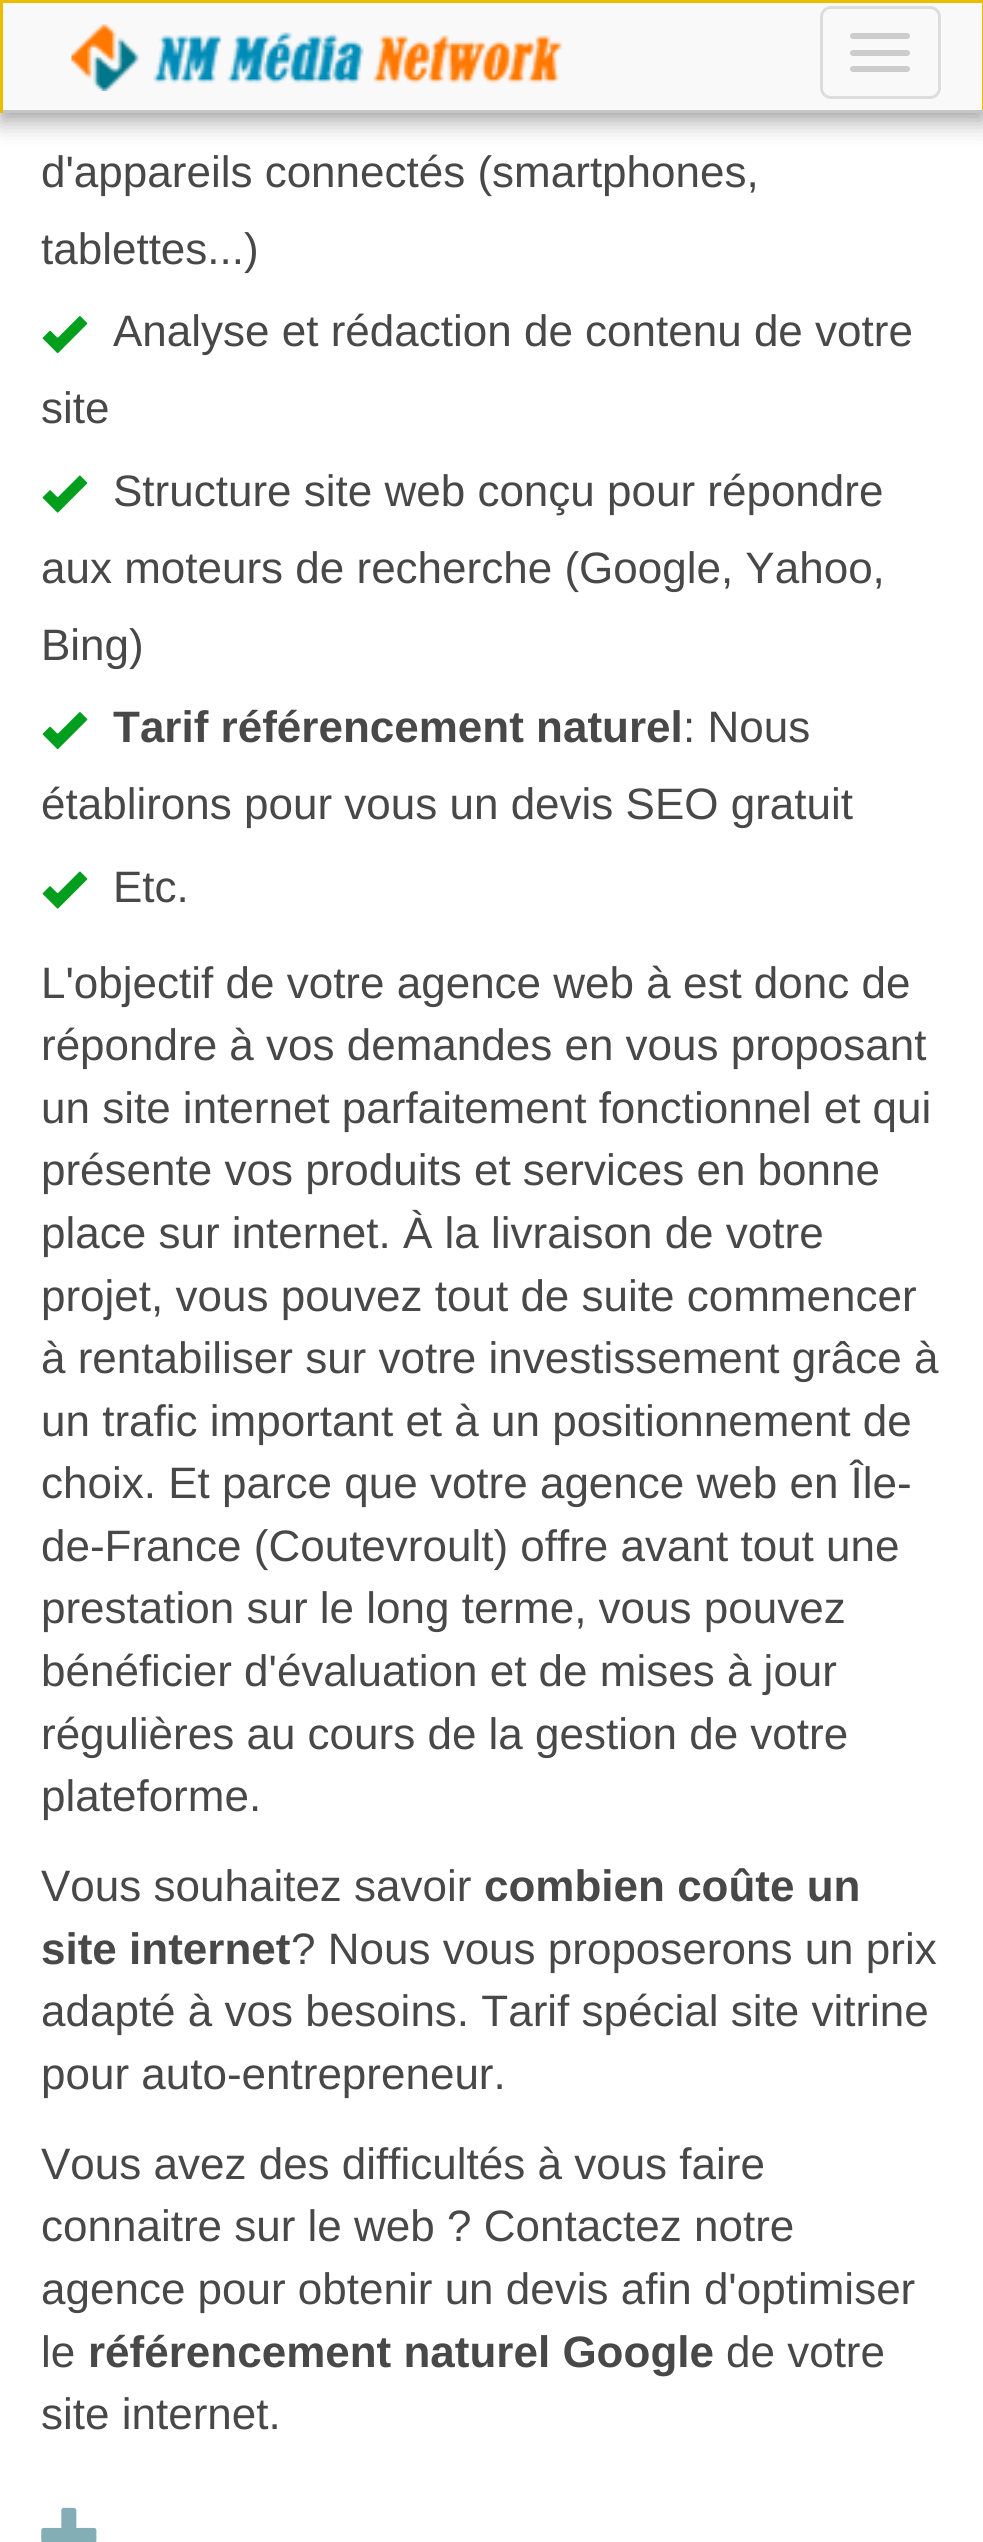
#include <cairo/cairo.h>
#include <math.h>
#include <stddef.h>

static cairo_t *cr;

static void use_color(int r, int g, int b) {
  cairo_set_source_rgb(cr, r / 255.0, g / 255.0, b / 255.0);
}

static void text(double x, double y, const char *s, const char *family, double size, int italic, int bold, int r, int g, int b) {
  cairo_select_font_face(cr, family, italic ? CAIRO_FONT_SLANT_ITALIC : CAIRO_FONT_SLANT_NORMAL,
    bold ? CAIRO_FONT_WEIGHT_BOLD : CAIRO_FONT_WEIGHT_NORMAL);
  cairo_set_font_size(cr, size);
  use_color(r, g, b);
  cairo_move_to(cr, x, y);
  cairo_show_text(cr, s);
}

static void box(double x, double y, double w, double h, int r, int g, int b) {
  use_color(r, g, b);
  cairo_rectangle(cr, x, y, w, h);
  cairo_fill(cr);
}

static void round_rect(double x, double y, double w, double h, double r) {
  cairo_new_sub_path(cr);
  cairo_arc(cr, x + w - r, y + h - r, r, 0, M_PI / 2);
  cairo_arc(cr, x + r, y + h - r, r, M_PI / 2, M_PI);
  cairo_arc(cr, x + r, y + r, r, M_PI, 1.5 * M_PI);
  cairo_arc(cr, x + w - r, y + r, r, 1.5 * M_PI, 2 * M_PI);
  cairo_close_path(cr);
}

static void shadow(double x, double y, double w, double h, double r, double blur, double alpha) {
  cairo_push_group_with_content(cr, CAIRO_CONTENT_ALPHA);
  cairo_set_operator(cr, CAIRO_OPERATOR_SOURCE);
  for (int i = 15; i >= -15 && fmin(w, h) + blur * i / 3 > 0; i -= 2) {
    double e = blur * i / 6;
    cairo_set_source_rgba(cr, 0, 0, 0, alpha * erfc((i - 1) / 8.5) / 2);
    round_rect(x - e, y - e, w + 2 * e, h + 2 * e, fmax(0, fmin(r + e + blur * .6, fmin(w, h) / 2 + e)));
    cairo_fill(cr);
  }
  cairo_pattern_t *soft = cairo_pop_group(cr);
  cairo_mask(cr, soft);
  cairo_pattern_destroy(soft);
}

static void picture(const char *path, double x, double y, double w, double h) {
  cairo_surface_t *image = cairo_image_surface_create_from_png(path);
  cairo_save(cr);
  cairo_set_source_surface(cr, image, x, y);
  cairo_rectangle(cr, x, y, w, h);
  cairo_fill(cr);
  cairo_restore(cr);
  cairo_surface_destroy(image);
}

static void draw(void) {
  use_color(255, 255, 255);
  cairo_paint(cr);
  use_color(0, 0, 0);
  shadow(0, 11, 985, 113, 0, 11, 0.28);
  shadow(0, 0, 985, 113, 0, 5.5, 0.14);
  box(3, 3, 979, 107, 249, 249, 249);
  box(0, 0, 983, 3, 235, 188, 0);
  box(982, 0, 1, 113, 235, 188, 0);
  box(0, 110, 983, 3, 197, 197, 197);
  box(0, 0, 3, 113, 235, 188, 0);
  picture("img_01.png", 71, 24, 491, 67);
  round_rect(821.5, 7.5, 118, 90, 9.5);
  use_color(221, 221, 221);
  cairo_set_line_width(cr, 3);
  cairo_stroke(cr);
  use_color(204, 204, 204);
  round_rect(850, 33, 60, 6, 3);
  cairo_fill(cr);
  round_rect(850, 50, 60, 6, 3);
  cairo_fill(cr);
  round_rect(850, 66, 60, 6, 3);
  cairo_fill(cr);
  picture("img_02.png", 42, 316, 46, 38);
  picture("img_03.png", 42, 475, 46, 38);
  picture("img_02.png", 42, 712, 46, 38);
  picture("img_03.png", 42, 871, 46, 38);
  picture("img_04.png", 41, 2507, 56, 35);
  text(41, 187, "d'appareils connectés (smartphones,", "Liberation Sans", 44, 0, 0, 72, 72, 72);
  text(41, 264, "tablettes...)", "Liberation Sans", 44, 0, 0, 72, 72, 72);
  text(113, 346, "Analyse et rédaction de contenu de votre", "Liberation Sans", 44, 0, 0, 72, 72, 72);
  text(41, 423, "site", "Liberation Sans", 44, 0, 0, 72, 72, 72);
  text(113, 506, "Structure site web conçu pour répondre", "Liberation Sans", 44, 0, 0, 72, 72, 72);
  text(41, 583, "aux moteurs de recherche (Google, Yahoo,", "Liberation Sans", 44, 0, 0, 72, 72, 72);
  text(41, 660, "Bing)", "Liberation Sans", 44, 0, 0, 72, 72, 72);
  text(113, 742, "Tarif référencement naturel", "Liberation Sans", 44, 0, 1, 72, 72, 72);
  text(683, 742, ": Nous", "Liberation Sans", 44, 0, 0, 72, 72, 72);
  text(41, 819, "établirons pour vous un devis SEO gratuit", "Liberation Sans", 44, 0, 0, 72, 72, 72);
  text(113, 902, "Etc.", "Liberation Sans", 44, 0, 0, 72, 72, 72);
  text(41, 998, "L'objectif de votre agence web à est donc de", "Liberation Sans", 44, 0, 0, 72, 72, 72);
  text(41, 1060, "répondre à vos demandes en vous proposant", "Liberation Sans", 44, 0, 0, 72, 72, 72);
  text(41, 1123, "un site internet parfaitement fonctionnel et qui", "Liberation Sans", 44, 0, 0, 72, 72, 72);
  text(41, 1185, "présente vos produits et services en bonne", "Liberation Sans", 44, 0, 0, 72, 72, 72);
  text(41, 1248, "place sur internet. À la livraison de votre", "Liberation Sans", 44, 0, 0, 72, 72, 72);
  text(41, 1311, "projet, vous pouvez tout de suite commencer", "Liberation Sans", 44, 0, 0, 72, 72, 72);
  text(41, 1373, "à rentabiliser sur votre investissement grâce à", "Liberation Sans", 44, 0, 0, 72, 72, 72);
  text(41, 1436, "un trafic important et à un positionnement de", "Liberation Sans", 44, 0, 0, 72, 72, 72);
  text(41, 1498, "choix. Et parce que votre agence web en Île-", "Liberation Sans", 44, 0, 0, 72, 72, 72);
  text(41, 1561, "de-France (Coutevroult) offre avant tout une", "Liberation Sans", 44, 0, 0, 72, 72, 72);
  text(41, 1623, "prestation sur le long terme, vous pouvez", "Liberation Sans", 44, 0, 0, 72, 72, 72);
  text(41, 1686, "bénéficier d'évaluation et de mises à jour", "Liberation Sans", 44, 0, 0, 72, 72, 72);
  text(41, 1749, "régulières au cours de la gestion de votre", "Liberation Sans", 44, 0, 0, 72, 72, 72);
  text(41, 1811, "plateforme.", "Liberation Sans", 44, 0, 0, 72, 72, 72);
  text(41, 1901, "Vous souhaitez savoir", "Liberation Sans", 44, 0, 0, 72, 72, 72);
  text(484, 1901, "combien coûte un", "Liberation Sans", 44, 0, 1, 72, 72, 72);
  text(41, 1964, "site internet", "Liberation Sans", 44, 0, 1, 72, 72, 72);
  text(291, 1964, "? Nous vous proposerons un prix", "Liberation Sans", 44, 0, 0, 72, 72, 72);
  text(41, 2026, "adapté à vos besoins. Tarif spécial site vitrine", "Liberation Sans", 44, 0, 0, 72, 72, 72);
  text(41, 2089, "pour auto-entrepreneur.", "Liberation Sans", 44, 0, 0, 72, 72, 72);
  text(41, 2179, "Vous avez des difficultés à vous faire", "Liberation Sans", 44, 0, 0, 72, 72, 72);
  text(41, 2241, "connaitre sur le web ? Contactez notre", "Liberation Sans", 44, 0, 0, 72, 72, 72);
  text(41, 2304, "agence pour obtenir un devis afin d'optimiser", "Liberation Sans", 44, 0, 0, 72, 72, 72);
  text(41, 2367, "le", "Liberation Sans", 44, 0, 0, 72, 72, 72);
  text(88, 2367, "référencement naturel Google", "Liberation Sans", 44, 0, 1, 72, 72, 72);
  text(726, 2367, "de votre", "Liberation Sans", 44, 0, 0, 72, 72, 72);
  text(41, 2429, "site internet.", "Liberation Sans", 44, 0, 0, 72, 72, 72);
}

int main(void) {
  cairo_surface_t *surface = cairo_image_surface_create(CAIRO_FORMAT_RGB24, 983, 2542);
  cr = cairo_create(surface);
  cairo_font_options_t *options = cairo_font_options_create();
  cairo_font_options_set_hint_metrics(options, CAIRO_HINT_METRICS_OFF);
  cairo_font_options_set_hint_style(options, CAIRO_HINT_STYLE_NONE);
  cairo_set_font_options(cr, options);
  cairo_set_miter_limit(cr, 4);
  draw();
  cairo_surface_write_to_png(surface, "out.png");
  cairo_font_options_destroy(options);
  cairo_destroy(cr);
  cairo_surface_destroy(surface);
  return 0;
}
